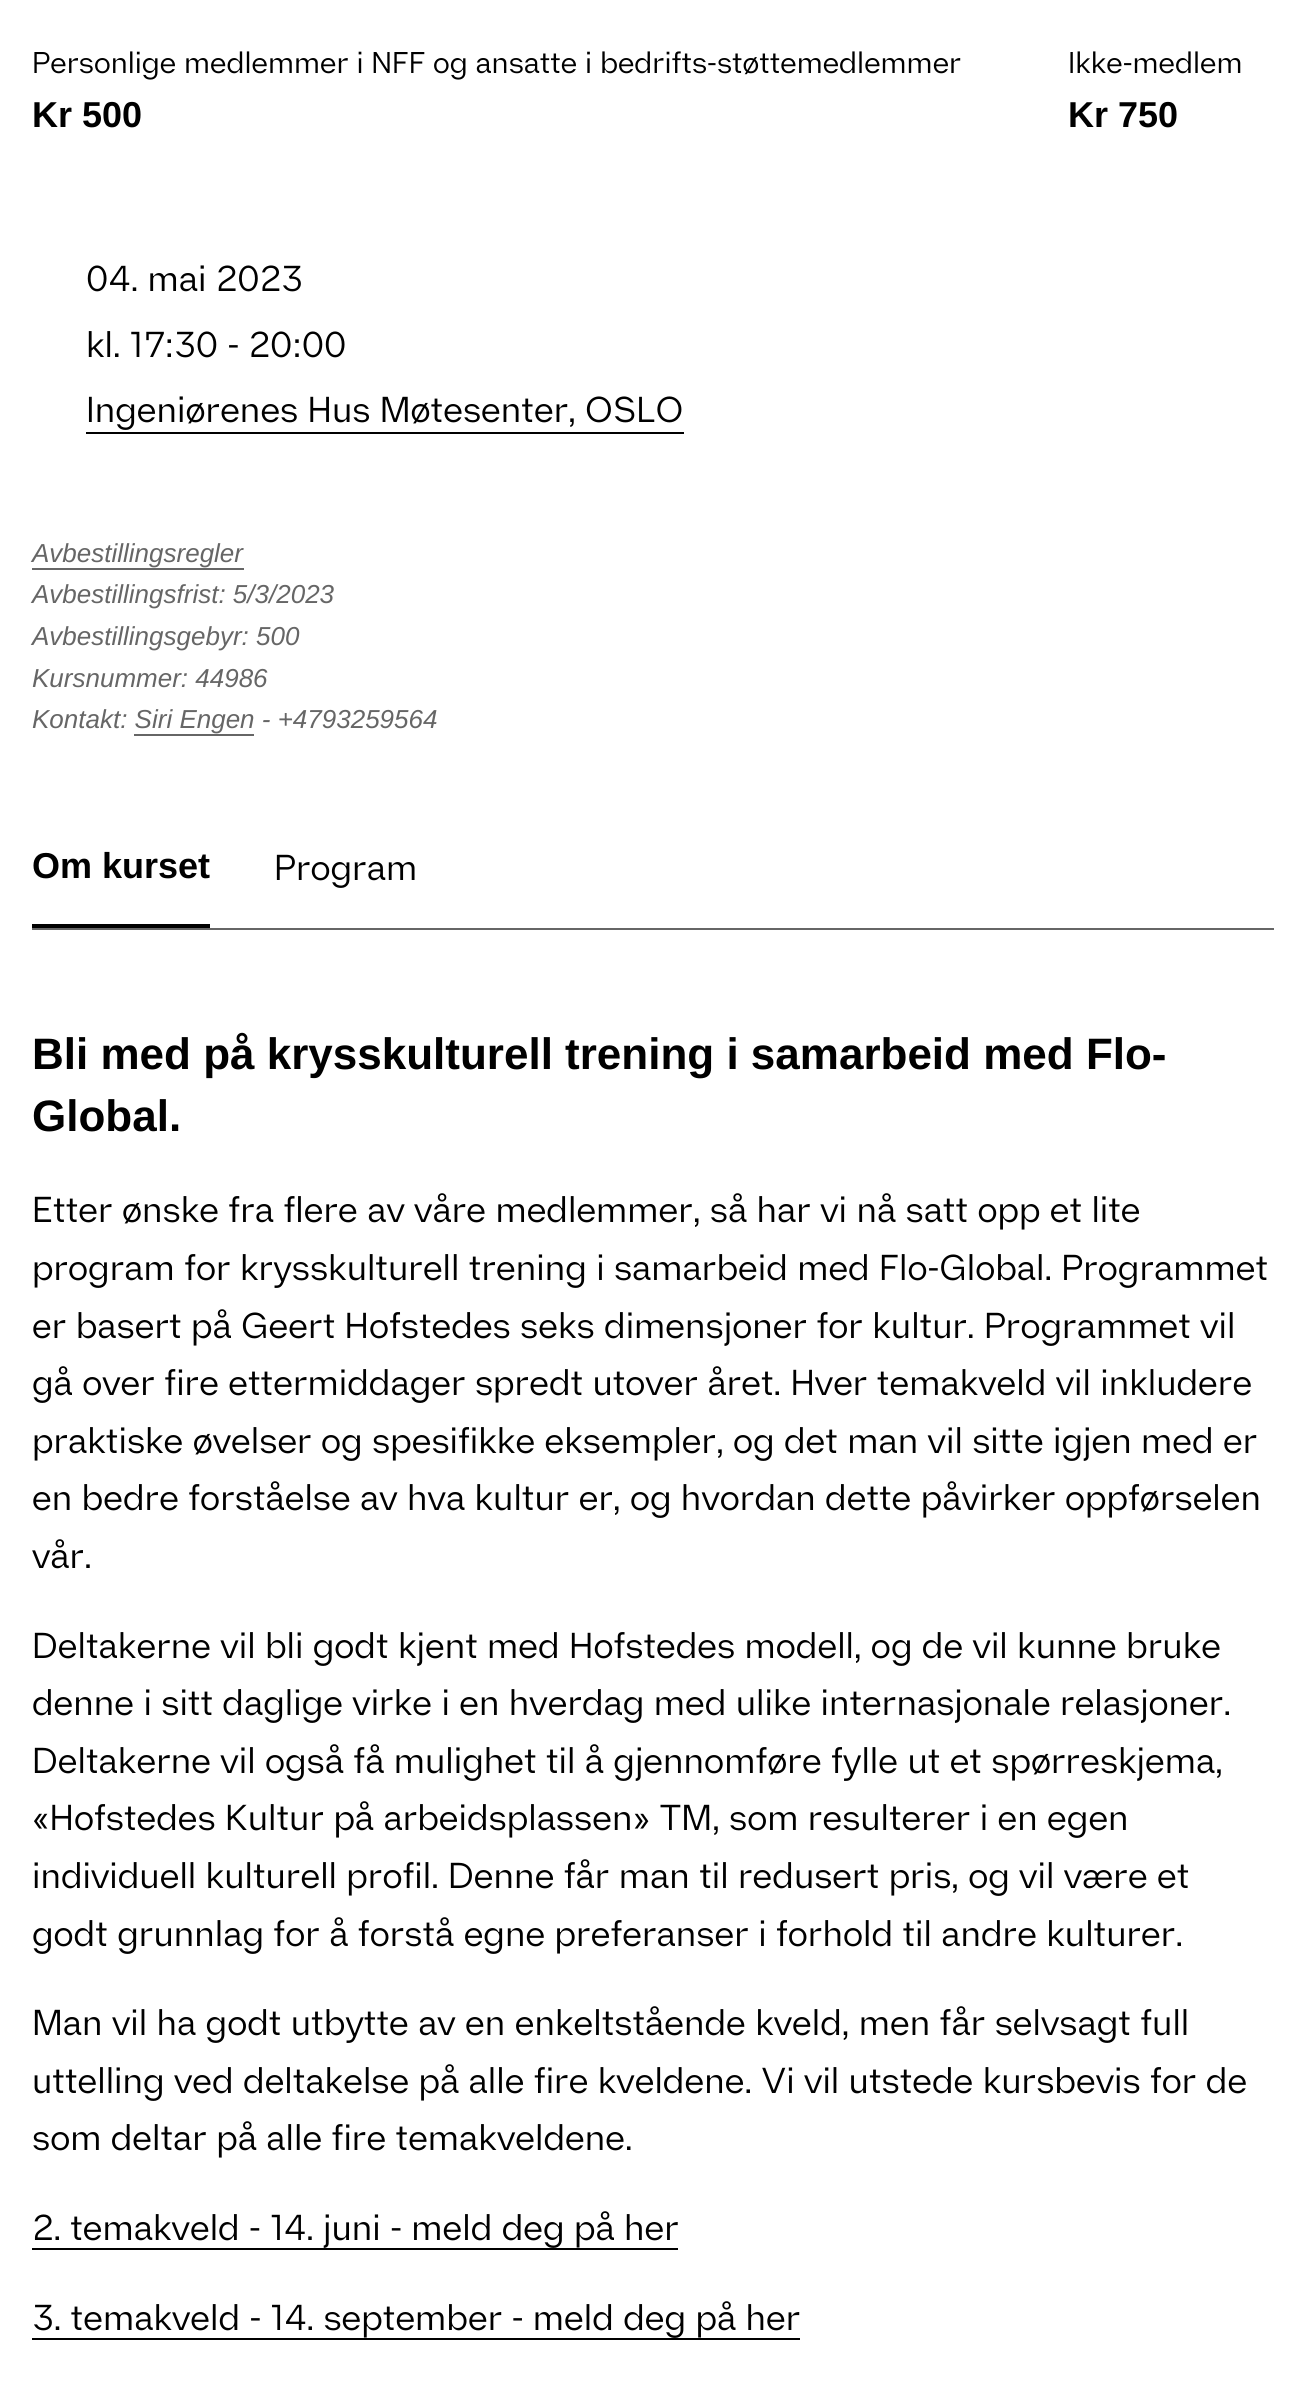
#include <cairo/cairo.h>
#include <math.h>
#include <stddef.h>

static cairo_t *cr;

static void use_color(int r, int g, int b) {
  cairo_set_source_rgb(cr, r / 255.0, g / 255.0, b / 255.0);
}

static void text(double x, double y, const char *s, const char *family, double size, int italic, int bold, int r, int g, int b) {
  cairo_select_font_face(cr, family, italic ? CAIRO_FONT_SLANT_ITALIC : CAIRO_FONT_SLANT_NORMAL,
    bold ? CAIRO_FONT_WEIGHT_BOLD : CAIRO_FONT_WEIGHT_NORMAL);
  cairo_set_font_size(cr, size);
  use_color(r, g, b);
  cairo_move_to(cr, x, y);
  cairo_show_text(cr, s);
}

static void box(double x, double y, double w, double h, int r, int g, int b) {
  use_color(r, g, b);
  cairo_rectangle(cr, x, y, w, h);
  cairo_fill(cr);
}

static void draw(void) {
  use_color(255, 255, 255);
  cairo_paint(cr);
  box(86, 432, 598, 2, 0, 0, 0);
  box(32, 568, 212, 2, 102, 102, 102);
  box(134, 734, 120, 2, 102, 102, 102);
  box(32, 928, 1242, 2, 102, 102, 102);
  box(32, 924, 178, 4, 0, 0, 0);
  box(32, 2248, 646, 2, 0, 0, 0);
  box(32, 2338, 768, 2, 0, 0, 0);
  text(32, 73, "Personlige medlemmer i NFF og ansatte i bedrifts-støttemedlemmer", "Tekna", 30, 0, 0, 0, 0, 0);
  text(32, 127, "Kr 500", "Liberation Sans", 36, 0, 1, 0, 0, 0);
  text(1068, 73, "Ikke-medlem", "Tekna", 30, 0, 0, 0, 0, 0);
  text(1068, 127, "Kr 750", "Liberation Sans", 36, 0, 1, 0, 0, 0);
  text(86, 291, "04. mai 2023", "Tekna", 36, 0, 0, 0, 0, 0);
  text(86, 357, "kl. 17:30 - 20:00", "Tekna", 36, 0, 0, 0, 0, 0);
  text(86, 422, "Ingeniørenes Hus Møtesenter, OSLO", "Tekna", 36, 0, 0, 0, 0, 0);
  text(32, 562, "Avbestillingsregler", "Liberation Sans", 26, 1, 0, 102, 102, 102);
  text(32, 603, "Avbestillingsfrist: 5/3/2023", "Liberation Sans", 26, 1, 0, 102, 102, 102);
  text(32, 645, "Avbestillingsgebyr: 500", "Liberation Sans", 26, 1, 0, 102, 102, 102);
  text(32, 687, "Kursnummer: 44986", "Liberation Sans", 26, 1, 0, 102, 102, 102);
  text(32, 728, "Kontakt: Siri Engen - +4793259564", "Liberation Sans", 26, 1, 0, 102, 102, 102);
  text(32, 878, "Om kurset", "Liberation Sans", 36, 0, 1, 0, 0, 0);
  text(274, 880, "Program", "Tekna", 36, 0, 0, 0, 0, 0);
  text(32, 1069, "Bli med på krysskulturell trening i samarbeid med Flo-", "Liberation Sans", 44, 0, 1, 0, 0, 0);
  text(32, 1131, "Global.", "Liberation Sans", 44, 0, 1, 0, 0, 0);
  text(32, 1222, "Etter ønske fra flere av våre medlemmer, så har vi nå satt opp et lite", "Tekna", 36, 0, 0, 0, 0, 0);
  text(32, 1280, "program for krysskulturell trening i samarbeid med Flo-Global. Programmet", "Tekna", 36, 0, 0, 0, 0, 0);
  text(32, 1338, "er basert på Geert Hofstedes seks dimensjoner for kultur. Programmet vil", "Tekna", 36, 0, 0, 0, 0, 0);
  text(32, 1395, "gå over fire ettermiddager spredt utover året. Hver temakveld vil inkludere", "Tekna", 36, 0, 0, 0, 0, 0);
  text(32, 1453, "praktiske øvelser og spesifikke eksempler, og det man vil sitte igjen med er", "Tekna", 36, 0, 0, 0, 0, 0);
  text(32, 1510, "en bedre forståelse av hva kultur er, og hvordan dette påvirker oppførselen", "Tekna", 36, 0, 0, 0, 0, 0);
  text(32, 1568, "vår.", "Tekna", 36, 0, 0, 0, 0, 0);
  text(32, 1658, "Deltakerne vil bli godt kjent med Hofstedes modell, og de vil kunne bruke", "Tekna", 36, 0, 0, 0, 0, 0);
  text(32, 1715, "denne i sitt daglige virke i en hverdag med ulike internasjonale relasjoner.", "Tekna", 36, 0, 0, 0, 0, 0);
  text(32, 1773, "Deltakerne vil også få mulighet til å gjennomføre fylle ut et spørreskjema,", "Tekna", 36, 0, 0, 0, 0, 0);
  text(32, 1830, "«Hofstedes Kultur på arbeidsplassen» TM, som resulterer i en egen", "Tekna", 36, 0, 0, 0, 0, 0);
  text(32, 1888, "individuell kulturell profil. Denne får man til redusert pris, og vil være et", "Tekna", 36, 0, 0, 0, 0, 0);
  text(32, 1946, "godt grunnlag for å forstå egne preferanser i forhold til andre kulturer.", "Tekna", 36, 0, 0, 0, 0, 0);
  text(32, 2035, "Man vil ha godt utbytte av en enkeltstående kveld, men får selvsagt full", "Tekna", 36, 0, 0, 0, 0, 0);
  text(32, 2093, "uttelling ved deltakelse på alle fire kveldene. Vi vil utstede kursbevis for de", "Tekna", 36, 0, 0, 0, 0, 0);
  text(32, 2150, "som deltar på alle fire temakveldene.", "Tekna", 36, 0, 0, 0, 0, 0);
  text(32, 2240, "2. temakveld - 14. juni - meld deg på her", "Tekna", 36, 0, 0, 0, 0, 0);
  text(32, 2330, "3. temakveld - 14. september - meld deg på her", "Tekna", 36, 0, 0, 0, 0, 0);
}

int main(void) {
  cairo_surface_t *surface = cairo_image_surface_create(CAIRO_FORMAT_RGB24, 1306, 2389);
  cr = cairo_create(surface);
  cairo_font_options_t *options = cairo_font_options_create();
  cairo_font_options_set_hint_metrics(options, CAIRO_HINT_METRICS_OFF);
  cairo_font_options_set_hint_style(options, CAIRO_HINT_STYLE_NONE);
  cairo_set_font_options(cr, options);
  cairo_set_miter_limit(cr, 4);
  draw();
  cairo_surface_write_to_png(surface, "out.png");
  cairo_font_options_destroy(options);
  cairo_destroy(cr);
  cairo_surface_destroy(surface);
  return 0;
}
